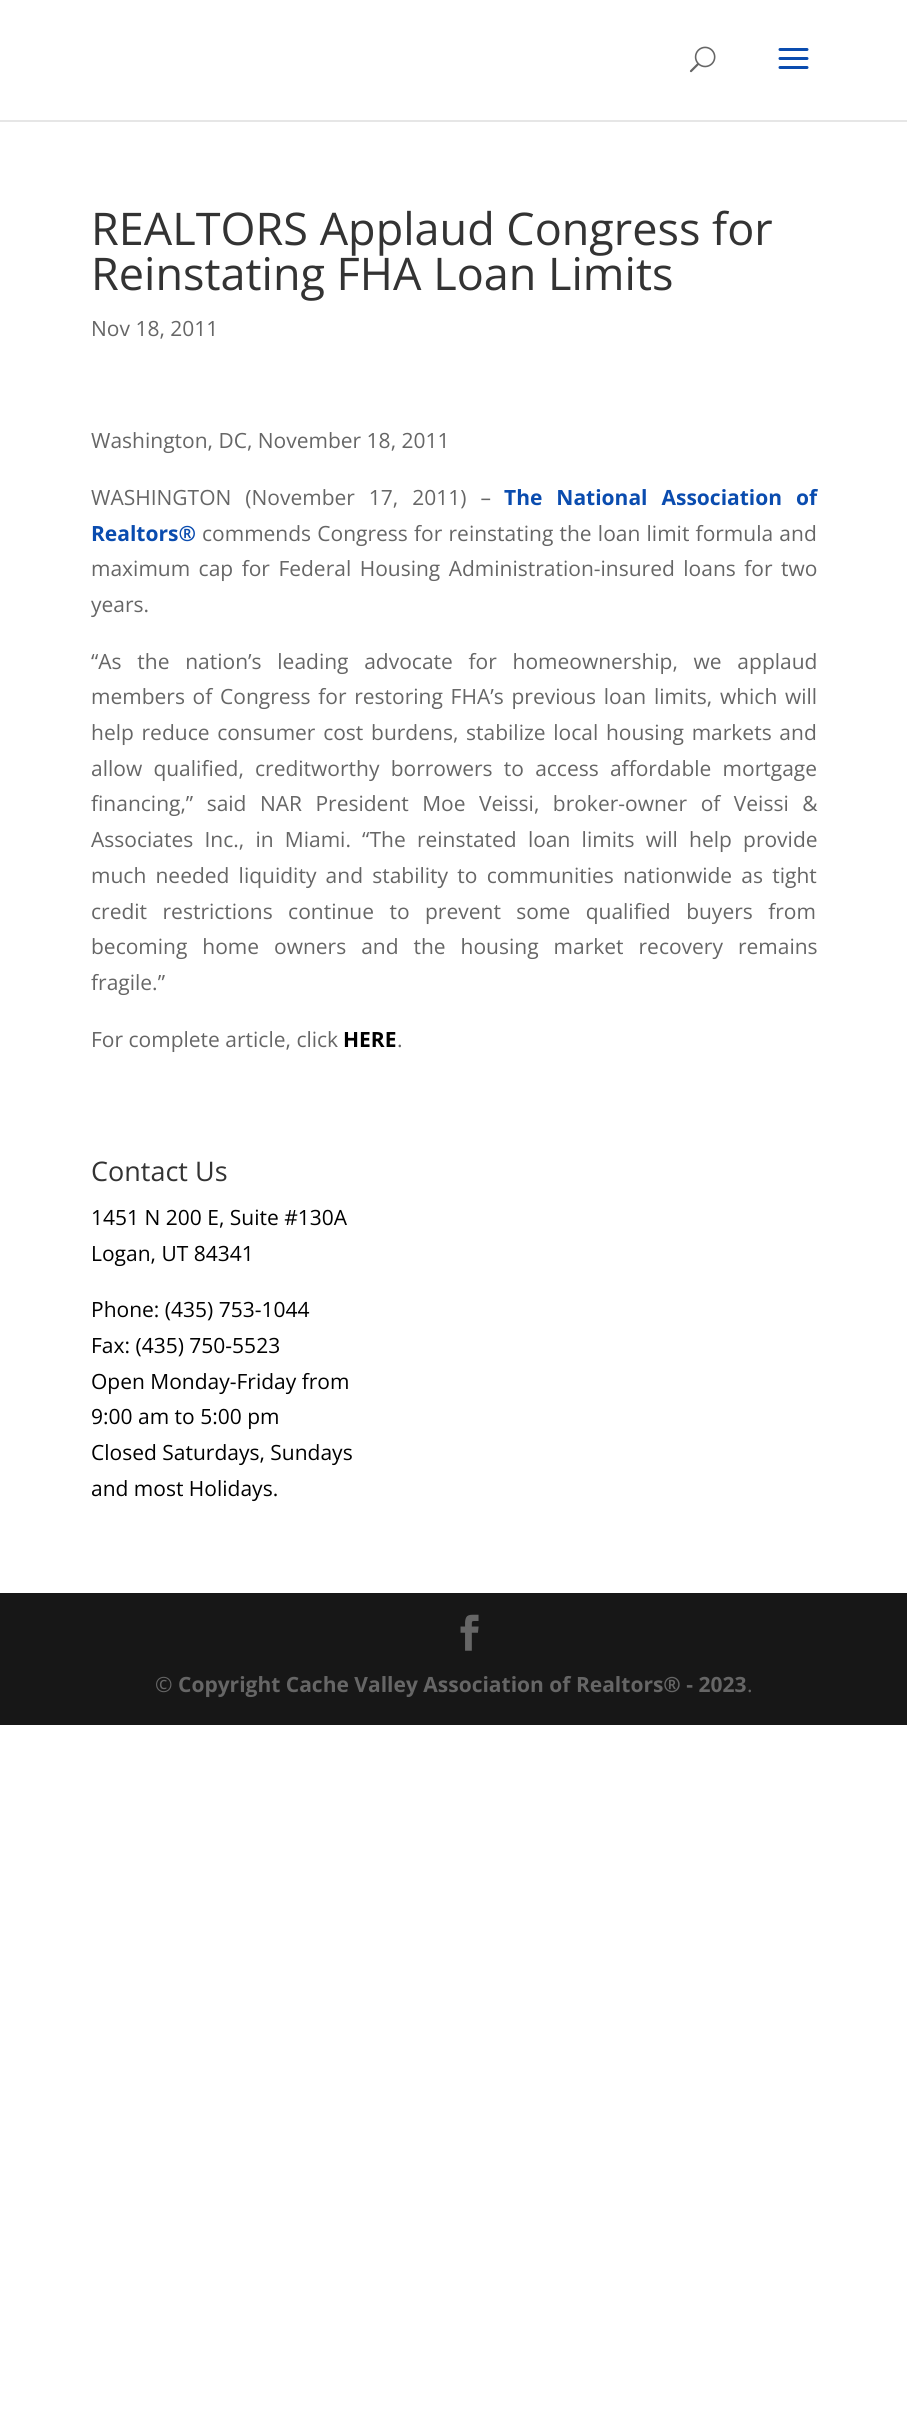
#include <cairo/cairo.h>
#include <math.h>
#include <stddef.h>

static cairo_t *cr;

static void use_color(int r, int g, int b) {
  cairo_set_source_rgb(cr, r / 255.0, g / 255.0, b / 255.0);
}

static void text(double x, double y, const char *s, const char *family, double size, int italic, int bold, int r, int g, int b) {
  cairo_select_font_face(cr, family, italic ? CAIRO_FONT_SLANT_ITALIC : CAIRO_FONT_SLANT_NORMAL,
    bold ? CAIRO_FONT_WEIGHT_BOLD : CAIRO_FONT_WEIGHT_NORMAL);
  cairo_set_font_size(cr, size);
  use_color(r, g, b);
  cairo_move_to(cr, x, y);
  cairo_show_text(cr, s);
}

static void spaced_text(double x, double y, const char *s, double letter, double word) {
  cairo_move_to(cr, x, y);
  while (*s) {
    char ch[5] = {0};
    int n = 0;
    do ch[n++] = *s++; while ((*s & 0xC0) == 0x80);
    cairo_show_text(cr, ch);
    cairo_rel_move_to(cr, letter + word * (*ch == ' '), 0);
  }
}

static void box(double x, double y, double w, double h, int r, int g, int b) {
  use_color(r, g, b);
  cairo_rectangle(cr, x, y, w, h);
  cairo_fill(cr);
}

static void picture(const char *path, double x, double y, double w, double h) {
  cairo_surface_t *image = cairo_image_surface_create_from_png(path);
  cairo_save(cr);
  cairo_set_source_surface(cr, image, x, y);
  cairo_rectangle(cr, x, y, w, h);
  cairo_fill(cr);
  cairo_restore(cr);
  cairo_surface_destroy(image);
}

static void draw(void) {
  use_color(255, 255, 255);
  cairo_paint(cr);
  use_color(230, 230, 230);
  cairo_new_path(cr);
  cairo_move_to(cr, 0, 120);
  cairo_line_to(cr, 0, 122);
  cairo_line_to(cr, 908, 122);
  cairo_line_to(cr, 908, 2);
  cairo_line_to(cr, 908, 120);
  cairo_close_path(cr);
  cairo_fill(cr);
  picture("img_01.png", 689, 46, 27, 27);
  picture("img_02.png", 778, 48, 31, 21);
  box(0, 1593, 907, 132, 23, 23, 23);
  picture("img_03.png", 460, 1614, 19, 37);
  text(91, 245, "REALTORS Applaud Congress for", "Open Sans", 45, 0, 0, 51, 51, 51);
  text(91, 290, "Reinstating FHA Loan Limits", "Open Sans", 45, 0, 0, 51, 51, 51);
  text(91, 336, "Nov 18, 2011", "Open Sans", 21, 0, 0, 102, 102, 102);
  text(91, 448, "Washington, DC, November 18, 2011", "Open Sans", 21, 0, 0, 102, 102, 102);
  spaced_text(91, 505, "WASHINGTON (November 17, 2011) –", 0, 8.5);
  cairo_select_font_face(cr, "Open Sans", CAIRO_FONT_SLANT_NORMAL, CAIRO_FONT_WEIGHT_BOLD);
  use_color(10, 76, 175);
  spaced_text(504, 505, "The National Association of", 0, 8.5);
  text(91, 541, "Realtors®", "Open Sans", 21, 0, 1, 10, 76, 175);
  cairo_select_font_face(cr, "Open Sans", CAIRO_FONT_SLANT_NORMAL, CAIRO_FONT_WEIGHT_NORMAL);
  use_color(102, 102, 102);
  spaced_text(202, 541, "commends Congress for reinstating the loan limit formula and", 0, 0.75);
  spaced_text(91, 576, "maximum cap for Federal Housing Administration-insured loans for two", 0, 3);
  text(91, 612, "years.", "Open Sans", 21, 0, 0, 102, 102, 102);
  spaced_text(91, 669, "“As the nation’s leading advocate for homeownership, we applaud", 0, 10.25);
  spaced_text(91, 704, "members of Congress for restoring FHA’s previous loan limits, which will", 0, 2.25);
  spaced_text(91, 740, "help reduce consumer cost burdens, stabilize local housing markets and", 0, 2.25);
  spaced_text(91, 776, "allow qualified, creditworthy borrowers to access affordable mortgage", 0, 5.75);
  spaced_text(91, 811, "financing,” said NAR President Moe Veissi, broker-owner of Veissi &", 0, 8);
  spaced_text(91, 847, "Associates Inc., in Miami. “The reinstated loan limits will help provide", 0, 5.75);
  spaced_text(91, 883, "much needed liquidity and stability to communities nationwide as tight", 0, 3.75);
  spaced_text(91, 919, "credit restrictions continue to prevent some qualified buyers from", 0, 10);
  spaced_text(91, 954, "becoming home owners and the housing market recovery remains", 0, 9.5);
  text(91, 990, "fragile.”", "Open Sans", 21, 0, 0, 102, 102, 102);
  text(91, 1047, "For complete article, click", "Open Sans", 21, 0, 0, 102, 102, 102);
  text(343, 1047, "HERE", "Open Sans", 21, 0, 1, 0, 0, 0);
  text(397, 1047, ".", "Open Sans", 21, 0, 0, 102, 102, 102);
  text(91, 1181, "Contact Us", "Open Sans", 27, 0, 0, 51, 51, 51);
  text(91, 1225, "1451 N 200 E, Suite #130A", "Open Sans", 21, 0, 0, 0, 0, 0);
  text(91, 1261, "Logan, UT 84341", "Open Sans", 21, 0, 0, 0, 0, 0);
  text(91, 1317, "Phone: (435) 753-1044", "Open Sans", 21, 0, 0, 0, 0, 0);
  text(91, 1353, "Fax: (435) 750-5523", "Open Sans", 21, 0, 0, 0, 0, 0);
  text(91, 1389, "Open Monday-Friday from", "Open Sans", 21, 0, 0, 0, 0, 0);
  text(91, 1424, "9:00 am to 5:00 pm", "Open Sans", 21, 0, 0, 0, 0, 0);
  text(91, 1460, "Closed Saturdays, Sundays", "Open Sans", 21, 0, 0, 0, 0, 0);
  text(91, 1496, "and most Holidays.", "Open Sans", 21, 0, 0, 0, 0, 0);
  text(155, 1692, "©", "Open Sans", 21, 0, 0, 102, 102, 102);
  text(178, 1692, "Copyright Cache Valley Association of Realtors® - 2023", "Open Sans", 21, 0, 1, 102, 102, 102);
  text(747, 1692, ".", "Open Sans", 21, 0, 0, 102, 102, 102);
}

int main(void) {
  cairo_surface_t *surface = cairo_image_surface_create(CAIRO_FORMAT_RGB24, 907, 2419);
  cr = cairo_create(surface);
  cairo_font_options_t *options = cairo_font_options_create();
  cairo_font_options_set_hint_metrics(options, CAIRO_HINT_METRICS_OFF);
  cairo_font_options_set_hint_style(options, CAIRO_HINT_STYLE_NONE);
  cairo_set_font_options(cr, options);
  cairo_set_miter_limit(cr, 4);
  draw();
  cairo_surface_write_to_png(surface, "out.png");
  cairo_font_options_destroy(options);
  cairo_destroy(cr);
  cairo_surface_destroy(surface);
  return 0;
}
